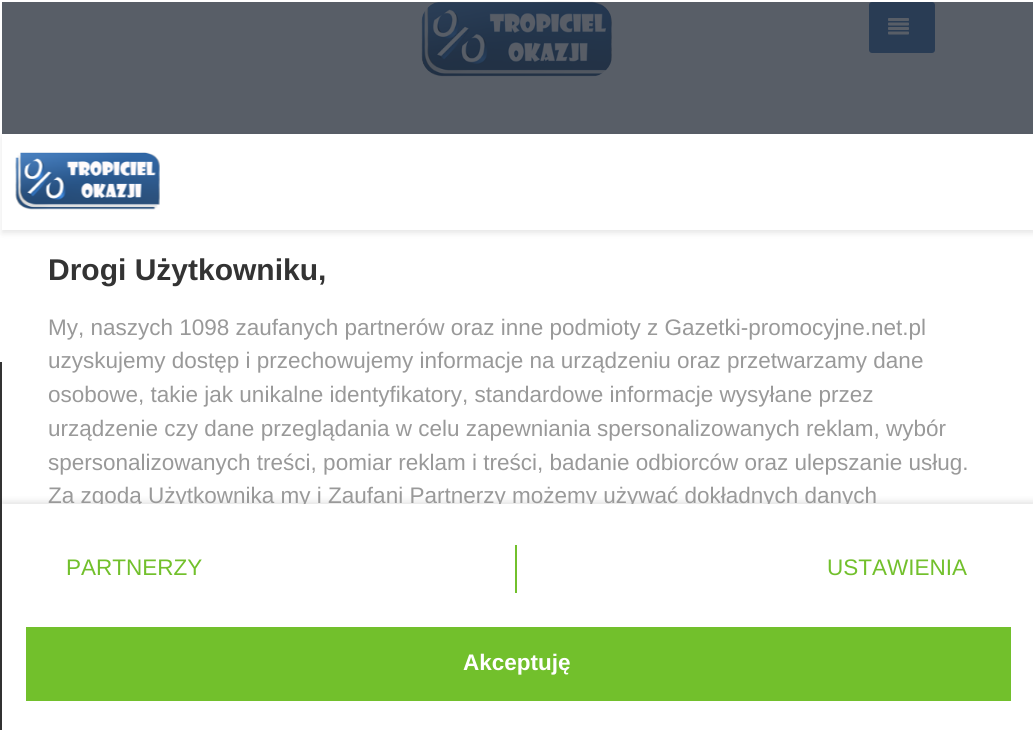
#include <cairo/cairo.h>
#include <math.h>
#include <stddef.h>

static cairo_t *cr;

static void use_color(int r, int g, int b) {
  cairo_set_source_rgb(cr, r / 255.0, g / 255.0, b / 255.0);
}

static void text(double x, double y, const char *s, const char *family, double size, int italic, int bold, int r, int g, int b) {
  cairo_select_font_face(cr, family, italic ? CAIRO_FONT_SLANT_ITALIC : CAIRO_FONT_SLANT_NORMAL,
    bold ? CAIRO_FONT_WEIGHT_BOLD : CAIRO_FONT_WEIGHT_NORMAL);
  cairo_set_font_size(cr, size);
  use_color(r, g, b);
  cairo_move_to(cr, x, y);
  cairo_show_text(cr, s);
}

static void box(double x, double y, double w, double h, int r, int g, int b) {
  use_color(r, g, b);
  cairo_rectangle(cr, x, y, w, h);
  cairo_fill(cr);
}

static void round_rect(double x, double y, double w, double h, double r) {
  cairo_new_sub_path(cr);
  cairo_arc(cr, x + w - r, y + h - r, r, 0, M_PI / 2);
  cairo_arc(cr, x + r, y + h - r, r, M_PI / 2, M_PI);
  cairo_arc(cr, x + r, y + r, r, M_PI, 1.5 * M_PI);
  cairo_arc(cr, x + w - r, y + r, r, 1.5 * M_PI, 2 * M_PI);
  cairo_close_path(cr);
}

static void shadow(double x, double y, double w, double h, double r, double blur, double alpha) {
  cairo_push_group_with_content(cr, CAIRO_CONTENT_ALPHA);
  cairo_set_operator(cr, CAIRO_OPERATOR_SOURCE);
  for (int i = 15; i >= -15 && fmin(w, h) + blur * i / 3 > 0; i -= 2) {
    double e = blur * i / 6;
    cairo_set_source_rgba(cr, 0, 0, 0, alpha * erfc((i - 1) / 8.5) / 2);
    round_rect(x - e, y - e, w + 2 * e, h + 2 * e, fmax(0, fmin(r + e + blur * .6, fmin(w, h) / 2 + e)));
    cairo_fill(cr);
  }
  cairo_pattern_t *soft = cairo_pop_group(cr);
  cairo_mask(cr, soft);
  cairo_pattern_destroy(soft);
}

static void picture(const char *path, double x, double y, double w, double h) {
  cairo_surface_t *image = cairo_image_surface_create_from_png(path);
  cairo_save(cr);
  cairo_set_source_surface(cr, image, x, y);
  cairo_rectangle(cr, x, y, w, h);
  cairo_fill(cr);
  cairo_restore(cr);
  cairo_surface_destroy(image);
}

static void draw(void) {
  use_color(255, 255, 255);
  cairo_paint(cr);
  picture("img_01.png", 421, 1, 191, 76);
  use_color(67, 119, 179);
  round_rect(870, 3, 64, 49, 2);
  cairo_fill_preserve(cr);
  cairo_stroke(cr);
  picture("img_02.png", 888, 18, 21, 17);
  cairo_set_source_rgba(cr, 0, 0, 0, 0.8);
  cairo_rectangle(cr, 0, 362, 2, 368);
  cairo_fill(cr);
  cairo_set_source_rgba(cr, 0.129, 0.161, 0.204, 0.75);
  cairo_rectangle(cr, 2, 2, 1031, 132);
  cairo_fill(cr);
  cairo_save(cr);
  cairo_set_fill_rule(cr, CAIRO_FILL_RULE_EVEN_ODD);
  cairo_new_path(cr);
  cairo_move_to(cr, 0, 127);
  cairo_line_to(cr, 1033, 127);
  cairo_line_to(cr, 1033, 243);
  cairo_line_to(cr, 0, 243);
  cairo_close_path(cr);
  cairo_move_to(cr, 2, 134);
  cairo_line_to(cr, 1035, 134);
  cairo_line_to(cr, 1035, 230);
  cairo_line_to(cr, 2, 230);
  cairo_close_path(cr);
  cairo_clip(cr);
  use_color(0, 0, 0);
  shadow(2, 137, 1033, 96, 0, 3, 0.1);
  cairo_restore(cr);
  picture("img_03.png", 15, 152, 145, 58);
  cairo_save(cr);
  cairo_set_fill_rule(cr, CAIRO_FILL_RULE_EVEN_ODD);
  cairo_new_path(cr);
  cairo_move_to(cr, 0, 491);
  cairo_line_to(cr, 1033, 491);
  cairo_line_to(cr, 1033, 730);
  cairo_line_to(cr, 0, 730);
  cairo_close_path(cr);
  cairo_move_to(cr, 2, 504);
  cairo_line_to(cr, 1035, 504);
  cairo_line_to(cr, 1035, 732);
  cairo_line_to(cr, 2, 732);
  cairo_close_path(cr);
  cairo_clip(cr);
  use_color(0, 0, 0);
  shadow(2, 501, 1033, 228, 0, 3, 0.1);
  cairo_restore(cr);
  box(515, 545, 2, 48, 114, 192, 44);
  box(26, 627, 985, 74, 114, 192, 44);
  text(48, 280, "Drogi Użytkowniku,", "Liberation Sans", 30, 0, 1, 51, 51, 51);
  text(48, 335, "My, naszych 1098 zaufanych partnerów oraz inne podmioty z Gazetki-promocyjne.net.pl", "Liberation Sans", 22.5, 0, 0, 153, 153, 153);
  text(48, 368, "uzyskujemy dostęp i przechowujemy informacje na urządzeniu oraz przetwarzamy dane", "Liberation Sans", 22.5, 0, 0, 153, 153, 153);
  text(48, 402, "osobowe, takie jak unikalne identyfikatory, standardowe informacje wysyłane przez", "Liberation Sans", 22.5, 0, 0, 153, 153, 153);
  text(48, 436, "urządzenie czy dane przeglądania w celu zapewniania spersonalizowanych reklam, wybór", "Liberation Sans", 22.5, 0, 0, 153, 153, 153);
  text(48, 470, "spersonalizowanych treści, pomiar reklam i treści, badanie odbiorców oraz ulepszanie usług.", "Liberation Sans", 22.5, 0, 0, 153, 153, 153);
  cairo_save(cr);
  cairo_rectangle(cr, 2, 230, 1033, 274);
  cairo_clip(cr);
  text(48, 503, "Za zgodą Użytkownika my i Zaufani Partnerzy możemy używać dokładnych danych", "Liberation Sans", 22.5, 0, 0, 153, 153, 153);
  cairo_restore(cr);
  text(66, 575, "PARTNERZY", "Liberation Sans", 22.5, 0, 0, 114, 192, 44);
  text(827, 575, "USTAWIENIA", "Liberation Sans", 22.5, 0, 0, 114, 192, 44);
  text(463, 670, "Akceptuję", "Liberation Sans", 22.5, 0, 1, 255, 255, 255);
}

int main(void) {
  cairo_surface_t *surface = cairo_image_surface_create(CAIRO_FORMAT_RGB24, 1033, 730);
  cr = cairo_create(surface);
  cairo_font_options_t *options = cairo_font_options_create();
  cairo_font_options_set_hint_metrics(options, CAIRO_HINT_METRICS_OFF);
  cairo_font_options_set_hint_style(options, CAIRO_HINT_STYLE_NONE);
  cairo_set_font_options(cr, options);
  cairo_set_miter_limit(cr, 4);
  draw();
  cairo_surface_write_to_png(surface, "out.png");
  cairo_font_options_destroy(options);
  cairo_destroy(cr);
  cairo_surface_destroy(surface);
  return 0;
}
